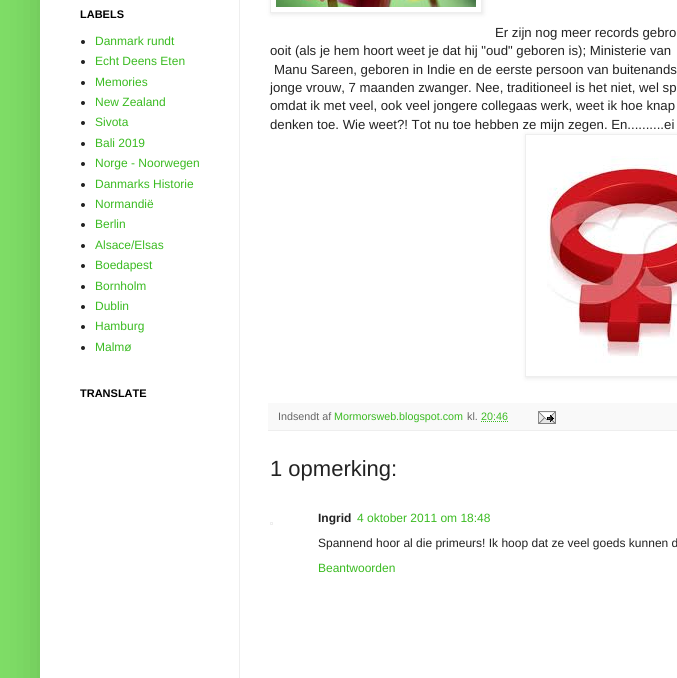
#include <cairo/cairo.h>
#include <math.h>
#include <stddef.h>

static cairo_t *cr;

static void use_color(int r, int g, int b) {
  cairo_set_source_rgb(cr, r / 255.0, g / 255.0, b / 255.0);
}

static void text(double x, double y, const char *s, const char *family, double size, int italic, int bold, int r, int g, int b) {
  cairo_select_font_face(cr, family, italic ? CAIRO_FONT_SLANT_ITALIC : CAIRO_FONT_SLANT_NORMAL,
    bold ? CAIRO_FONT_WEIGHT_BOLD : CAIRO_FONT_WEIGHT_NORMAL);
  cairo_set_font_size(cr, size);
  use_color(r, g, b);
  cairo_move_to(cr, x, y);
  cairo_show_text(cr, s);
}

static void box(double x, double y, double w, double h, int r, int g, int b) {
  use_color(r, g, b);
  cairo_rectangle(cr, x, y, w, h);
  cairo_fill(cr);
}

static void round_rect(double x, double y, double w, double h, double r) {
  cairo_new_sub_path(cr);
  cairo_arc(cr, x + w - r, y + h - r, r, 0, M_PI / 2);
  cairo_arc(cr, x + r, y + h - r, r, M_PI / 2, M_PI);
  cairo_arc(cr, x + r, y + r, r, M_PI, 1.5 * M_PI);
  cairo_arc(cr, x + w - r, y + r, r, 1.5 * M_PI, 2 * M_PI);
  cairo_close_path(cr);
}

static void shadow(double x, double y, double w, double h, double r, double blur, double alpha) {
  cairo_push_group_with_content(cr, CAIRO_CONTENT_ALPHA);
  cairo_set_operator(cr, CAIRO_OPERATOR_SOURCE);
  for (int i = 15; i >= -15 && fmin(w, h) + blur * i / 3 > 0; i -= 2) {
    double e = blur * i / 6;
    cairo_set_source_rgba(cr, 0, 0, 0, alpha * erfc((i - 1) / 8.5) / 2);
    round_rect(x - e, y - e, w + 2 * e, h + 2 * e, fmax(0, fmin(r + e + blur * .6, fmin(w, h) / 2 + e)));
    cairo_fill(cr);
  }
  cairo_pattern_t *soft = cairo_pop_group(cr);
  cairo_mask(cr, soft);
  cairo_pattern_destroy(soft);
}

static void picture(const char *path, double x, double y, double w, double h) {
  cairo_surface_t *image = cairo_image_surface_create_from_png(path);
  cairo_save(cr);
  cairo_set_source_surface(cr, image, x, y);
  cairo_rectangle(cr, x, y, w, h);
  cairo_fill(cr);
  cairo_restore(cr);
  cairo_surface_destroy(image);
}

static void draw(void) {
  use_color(126, 221, 102);
  cairo_paint(cr);
  use_color(0, 0, 0);
  shadow(40, -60, 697, 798, 0, 20, 0.15);
  box(40, 0, 637, 678, 255, 255, 255);
  box(239, 0, 1, 678, 238, 238, 238);
  use_color(34, 34, 34);
  cairo_arc(cr, 83, 42, 2, 0, 2 * M_PI);
  cairo_fill(cr);
  cairo_arc(cr, 83, 62, 2, 0, 2 * M_PI);
  cairo_fill(cr);
  cairo_arc(cr, 83, 83, 2, 0, 2 * M_PI);
  cairo_fill(cr);
  cairo_arc(cr, 83, 103, 2, 0, 2 * M_PI);
  cairo_fill(cr);
  cairo_arc(cr, 83, 123, 2, 0, 2 * M_PI);
  cairo_fill(cr);
  cairo_arc(cr, 83, 144, 2, 0, 2 * M_PI);
  cairo_fill(cr);
  cairo_arc(cr, 83, 164, 2, 0, 2 * M_PI);
  cairo_fill(cr);
  cairo_arc(cr, 83, 185, 2, 0, 2 * M_PI);
  cairo_fill(cr);
  cairo_arc(cr, 83, 205, 2, 0, 2 * M_PI);
  cairo_fill(cr);
  cairo_arc(cr, 83, 225, 2, 0, 2 * M_PI);
  cairo_fill(cr);
  cairo_arc(cr, 83, 246, 2, 0, 2 * M_PI);
  cairo_fill(cr);
  cairo_arc(cr, 83, 266, 2, 0, 2 * M_PI);
  cairo_fill(cr);
  cairo_arc(cr, 83, 287, 2, 0, 2 * M_PI);
  cairo_fill(cr);
  cairo_arc(cr, 83, 307, 2, 0, 2 * M_PI);
  cairo_fill(cr);
  cairo_arc(cr, 83, 327, 2, 0, 2 * M_PI);
  cairo_fill(cr);
  cairo_arc(cr, 83, 348, 2, 0, 2 * M_PI);
  cairo_fill(cr);
  cairo_save(cr);
  cairo_set_fill_rule(cr, CAIRO_FILL_RULE_EVEN_ODD);
  cairo_new_path(cr);
  cairo_move_to(cr, 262, 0);
  cairo_line_to(cr, 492, 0);
  cairo_line_to(cr, 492, 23);
  cairo_line_to(cr, 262, 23);
  cairo_close_path(cr);
  cairo_move_to(cr, 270, -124);
  cairo_line_to(cr, 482, -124);
  cairo_line_to(cr, 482, 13);
  cairo_line_to(cr, 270, 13);
  cairo_close_path(cr);
  cairo_clip(cr);
  use_color(0, 0, 0);
  shadow(271, -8, 212, 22, 0, 2.5, 0.1);
  cairo_restore(cr);
  cairo_rectangle(cr, 270.5, -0.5, 211, 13);
  use_color(238, 238, 238);
  cairo_set_line_width(cr, 1);
  cairo_stroke(cr);
  picture("img_01.png", 276, 0, 200, 7);
  cairo_save(cr);
  cairo_set_fill_rule(cr, CAIRO_FILL_RULE_EVEN_ODD);
  cairo_new_path(cr);
  cairo_move_to(cr, 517, 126);
  cairo_line_to(cr, 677, 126);
  cairo_line_to(cr, 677, 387);
  cairo_line_to(cr, 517, 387);
  cairo_close_path(cr);
  cairo_move_to(cr, 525, 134);
  cairo_line_to(cr, 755, 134);
  cairo_line_to(cr, 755, 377);
  cairo_line_to(cr, 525, 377);
  cairo_close_path(cr);
  cairo_clip(cr);
  use_color(0, 0, 0);
  shadow(526, 135, 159, 243, 0, 2.5, 0.1);
  cairo_restore(cr);
  cairo_rectangle(cr, 525.5, 134.5, 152, 242);
  cairo_stroke(cr);
  picture("img_02.png", 547, 156, 130, 207);
  box(268, 403, 409, 27, 249, 249, 249);
  box(268, 430, 409, 1, 238, 238, 238);
  cairo_new_path(cr);
  cairo_move_to(cr, 481, 421.5);
  cairo_line_to(cr, 508, 421.5);
  use_color(58, 187, 33);
  cairo_set_dash(cr, (double[]){1, 1}, 2, 0);
  cairo_stroke(cr);
  picture("img_03.png", 538, 411, 18, 13);
  cairo_rectangle(cr, 270.5, 522.5, 2, 2);
  use_color(238, 238, 238);
  cairo_set_dash(cr, NULL, 0, 0);
  cairo_stroke(cr);
  text(80, 18, "LABELS", "Liberation Sans", 11, 0, 1, 0, 0, 0);
  text(95, 45, "Danmark rundt", "Liberation Sans", 12, 0, 0, 58, 187, 33);
  text(95, 65, "Echt Deens Eten", "Liberation Sans", 12, 0, 0, 58, 187, 33);
  text(95, 86, "Memories", "Liberation Sans", 12, 0, 0, 58, 187, 33);
  text(95, 106, "New Zealand", "Liberation Sans", 12, 0, 0, 58, 187, 33);
  text(95, 126, "Sivota", "Liberation Sans", 12, 0, 0, 58, 187, 33);
  text(95, 147, "Bali 2019", "Liberation Sans", 12, 0, 0, 58, 187, 33);
  text(95, 167, "Norge - Noorwegen", "Liberation Sans", 12, 0, 0, 58, 187, 33);
  text(95, 188, "Danmarks Historie", "Liberation Sans", 12, 0, 0, 58, 187, 33);
  text(95, 208, "Normandië", "Liberation Sans", 12, 0, 0, 58, 187, 33);
  text(95, 228, "Berlin", "Liberation Sans", 12, 0, 0, 58, 187, 33);
  text(95, 249, "Alsace/Elsas", "Liberation Sans", 12, 0, 0, 58, 187, 33);
  text(95, 269, "Boedapest", "Liberation Sans", 12, 0, 0, 58, 187, 33);
  text(95, 290, "Bornholm", "Liberation Sans", 12, 0, 0, 58, 187, 33);
  text(95, 310, "Dublin", "Liberation Sans", 12, 0, 0, 58, 187, 33);
  text(95, 330, "Hamburg", "Liberation Sans", 12, 0, 0, 58, 187, 33);
  text(95, 351, "Malmø", "Liberation Sans", 12, 0, 0, 58, 187, 33);
  text(80, 397, "TRANSLATE", "Liberation Sans", 11, 0, 1, 0, 0, 0);
  text(495, 37, "Er zijn nog meer records gebro", "Liberation Sans", 13.2, 0, 0, 34, 34, 34);
  text(270, 55, "ooit (als je hem hoort weet je dat hij \"oud\" geboren is); Ministerie van", "Liberation Sans", 13.2, 0, 0, 34, 34, 34);
  text(274, 74, "Manu Sareen, geboren in Indie en de eerste persoon van buitenands", "Liberation Sans", 13.2, 0, 0, 34, 34, 34);
  text(270, 92, "jonge vrouw, 7 maanden zwanger. Nee, traditioneel is het niet, wel sp", "Liberation Sans", 13.2, 0, 0, 34, 34, 34);
  text(270, 110, "omdat ik met veel, ook veel jongere collegaas werk, weet ik hoe knap", "Liberation Sans", 13.2, 0, 0, 34, 34, 34);
  text(270, 129, "denken toe. Wie weet?! Tot nu toe hebben ze mijn zegen. En..........ei", "Liberation Sans", 13.2, 0, 0, 34, 34, 34);
  text(278, 420, "Indsendt af", "Liberation Sans", 10.75, 0, 0, 102, 102, 102);
  text(334, 420, "Mormorsweb.blogspot.com", "Liberation Sans", 10.75, 0, 0, 58, 187, 33);
  text(467, 420, "kl.", "Liberation Sans", 10.75, 0, 0, 102, 102, 102);
  text(481, 420, "20:46", "Liberation Sans", 10.75, 0, 0, 58, 187, 33);
  text(270, 476, "1 opmerking:", "Liberation Sans", 22, 0, 0, 34, 34, 34);
  text(318, 522, "Ingrid", "Liberation Sans", 12, 0, 1, 34, 34, 34);
  text(357, 522, "4 oktober 2011 om 18:48", "Liberation Sans", 12, 0, 0, 58, 187, 33);
  text(318, 547, "Spannend hoor al die primeurs! Ik hoop dat ze veel goeds kunnen d", "Liberation Sans", 12, 0, 0, 34, 34, 34);
  text(318, 572, "Beantwoorden", "Liberation Sans", 12, 0, 0, 58, 187, 33);
}

int main(void) {
  cairo_surface_t *surface = cairo_image_surface_create(CAIRO_FORMAT_RGB24, 677, 678);
  cr = cairo_create(surface);
  cairo_font_options_t *options = cairo_font_options_create();
  cairo_font_options_set_hint_metrics(options, CAIRO_HINT_METRICS_OFF);
  cairo_font_options_set_hint_style(options, CAIRO_HINT_STYLE_NONE);
  cairo_set_font_options(cr, options);
  cairo_set_miter_limit(cr, 4);
  draw();
  cairo_surface_write_to_png(surface, "out.png");
  cairo_font_options_destroy(options);
  cairo_destroy(cr);
  cairo_surface_destroy(surface);
  return 0;
}
